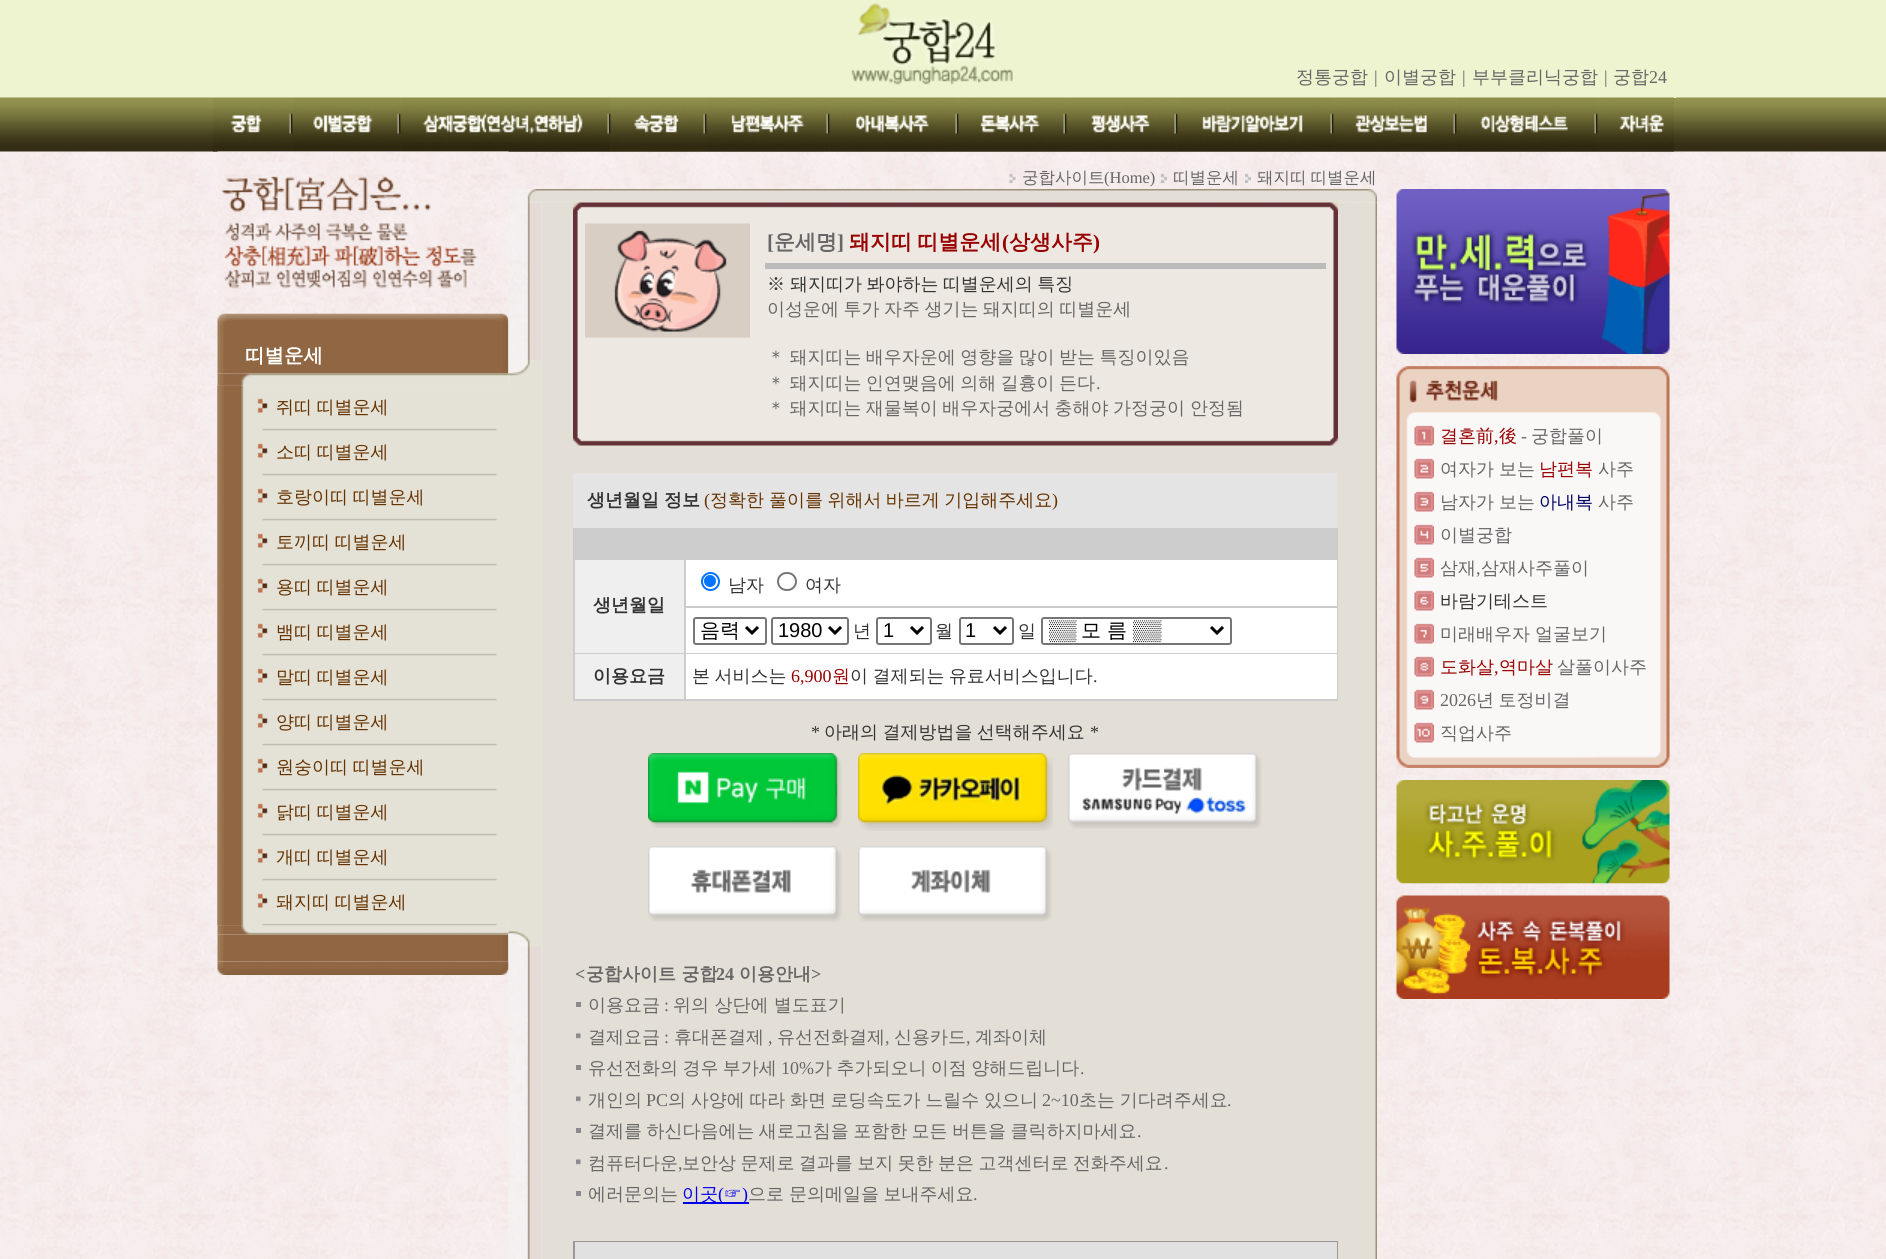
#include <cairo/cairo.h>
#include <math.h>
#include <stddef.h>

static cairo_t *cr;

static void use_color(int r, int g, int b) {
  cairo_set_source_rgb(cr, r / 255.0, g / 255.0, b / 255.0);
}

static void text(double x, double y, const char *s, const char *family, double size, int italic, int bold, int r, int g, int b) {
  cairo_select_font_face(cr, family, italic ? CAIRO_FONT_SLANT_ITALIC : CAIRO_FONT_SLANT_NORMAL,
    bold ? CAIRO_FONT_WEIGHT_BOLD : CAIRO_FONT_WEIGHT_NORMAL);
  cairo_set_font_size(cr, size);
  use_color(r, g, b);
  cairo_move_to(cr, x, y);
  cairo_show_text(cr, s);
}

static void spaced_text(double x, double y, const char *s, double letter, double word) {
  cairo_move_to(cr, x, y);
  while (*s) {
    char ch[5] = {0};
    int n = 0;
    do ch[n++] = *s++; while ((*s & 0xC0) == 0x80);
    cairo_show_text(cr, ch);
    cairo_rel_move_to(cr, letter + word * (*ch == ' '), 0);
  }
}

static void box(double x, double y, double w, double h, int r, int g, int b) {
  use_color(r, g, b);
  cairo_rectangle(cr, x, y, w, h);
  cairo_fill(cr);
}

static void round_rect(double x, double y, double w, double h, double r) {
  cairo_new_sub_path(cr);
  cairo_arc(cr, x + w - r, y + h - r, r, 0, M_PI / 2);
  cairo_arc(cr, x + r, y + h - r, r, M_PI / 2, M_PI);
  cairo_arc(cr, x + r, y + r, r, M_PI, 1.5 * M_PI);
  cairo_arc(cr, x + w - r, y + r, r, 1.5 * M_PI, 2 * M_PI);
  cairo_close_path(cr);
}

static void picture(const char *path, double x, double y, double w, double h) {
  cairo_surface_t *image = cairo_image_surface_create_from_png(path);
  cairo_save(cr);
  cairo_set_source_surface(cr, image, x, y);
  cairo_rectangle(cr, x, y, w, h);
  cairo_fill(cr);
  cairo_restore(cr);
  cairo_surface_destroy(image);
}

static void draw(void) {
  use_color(255, 255, 255);
  cairo_paint(cr);
  picture("img_01.png", 0, 151, 1886, 1108);
  picture("img_02.png", 0, 0, 1886, 152);
  box(213, 97, 1463, 1, 237, 244, 207);
  picture("img_03.png", 851, 3, 162, 82);
  picture("img_04.png", 213, 97, 80, 55);
  picture("img_05.png", 292, 97, 109, 55);
  picture("img_06.png", 400, 97, 211, 55);
  picture("img_07.png", 610, 97, 97, 55);
  picture("img_08.png", 706, 97, 124, 55);
  picture("img_09.png", 829, 97, 130, 55);
  picture("img_10.png", 958, 97, 109, 55);
  picture("img_11.png", 1066, 97, 112, 55);
  picture("img_12.png", 1177, 97, 157, 55);
  picture("img_13.png", 1333, 97, 124, 55);
  picture("img_14.png", 1456, 97, 142, 55);
  picture("img_15.png", 1597, 97, 77, 55);
  picture("img_17.png", 217, 313, 292, 61);
  picture("img_19.png", 217, 385, 292, 541);
  picture("img_20.png", 217, 385, 291, 46);
  picture("img_21.png", 217, 430, 291, 46);
  picture("img_22.png", 217, 475, 291, 46);
  picture("img_23.png", 217, 520, 291, 46);
  picture("img_24.png", 217, 565, 291, 46);
  picture("img_25.png", 217, 610, 291, 46);
  picture("img_26.png", 217, 655, 291, 46);
  picture("img_27.png", 217, 700, 291, 46);
  picture("img_28.png", 217, 745, 291, 46);
  picture("img_29.png", 217, 790, 291, 46);
  picture("img_30.png", 217, 835, 291, 46);
  picture("img_31.png", 217, 880, 292, 46);
  picture("img_33.png", 217, 934, 292, 28);
  picture("img_39.png", 508, 202, 34, 1057);
  picture("img_16.png", 217, 151, 292, 163);
  picture("img_18.png", 217, 373, 292, 13);
  picture("img_32.png", 217, 925, 292, 10);
  picture("img_34.png", 217, 961, 292, 14);
  picture("img_35.png", 1009, 173, 7, 10);
  picture("img_36.png", 1161, 173, 6, 10);
  picture("img_37.png", 1245, 173, 6, 10);
  picture("img_44.png", 541, 202, 836, 1057);
  picture("img_38.png", 509, 189, 868, 14);
  picture("img_40.png", 508, 202, 22, 158);
  picture("img_41.png", 508, 360, 33, 24);
  box(508, 384, 33, 537, 228, 225, 214);
  picture("img_42.png", 508, 921, 33, 26);
  picture("img_43.png", 508, 946, 20, 99);
  picture("img_45.png", 573, 202, 765, 14);
  picture("img_46.png", 573, 216, 765, 216);
  picture("img_47.png", 585, 223, 165, 115);
  box(765, 263, 561, 6, 187, 187, 187);
  picture("img_48.png", 573, 432, 765, 14);
  box(573, 473, 765, 55, 228, 228, 228);
  box(573, 528, 765, 173, 204, 204, 204);
  box(686, 560, 651, 46, 255, 255, 255);
  cairo_arc(cr, 710.5, 581.5, 8.5, 0, 2 * M_PI);
  use_color(0, 117, 255);
  cairo_stroke(cr);
  cairo_arc(cr, 710, 581, 6, 0, 2 * M_PI);
  cairo_fill(cr);
  round_rect(778, 573, 18, 17, 8.5);
  use_color(118, 118, 118);
  cairo_stroke(cr);
  box(575, 560, 109, 93, 239, 239, 239);
  box(686, 608, 651, 45, 255, 255, 255);
  round_rect(694, 618, 72, 26, 2);
  use_color(118, 118, 118);
  cairo_stroke(cr);
  cairo_new_path(cr);
  cairo_move_to(cr, 746, 627);
  cairo_line_to(cr, 752, 633);
  cairo_line_to(cr, 758, 627);
  use_color(0, 0, 0);
  cairo_set_line_width(cr, 3);
  cairo_stroke(cr);
  round_rect(772, 618, 76, 26, 2);
  use_color(118, 118, 118);
  cairo_set_line_width(cr, 2);
  cairo_stroke(cr);
  cairo_new_path(cr);
  cairo_move_to(cr, 829, 627);
  cairo_line_to(cr, 835, 633);
  cairo_line_to(cr, 841, 627);
  use_color(0, 0, 0);
  cairo_set_line_width(cr, 3);
  cairo_stroke(cr);
  round_rect(877, 618, 54, 26, 2);
  use_color(118, 118, 118);
  cairo_set_line_width(cr, 2);
  cairo_stroke(cr);
  cairo_new_path(cr);
  cairo_move_to(cr, 911, 627);
  cairo_line_to(cr, 917, 633);
  cairo_line_to(cr, 923, 627);
  use_color(0, 0, 0);
  cairo_set_line_width(cr, 3);
  cairo_stroke(cr);
  round_rect(960, 618, 53, 26, 2);
  use_color(118, 118, 118);
  cairo_set_line_width(cr, 2);
  cairo_stroke(cr);
  cairo_new_path(cr);
  cairo_move_to(cr, 994, 627);
  cairo_line_to(cr, 1000, 633);
  cairo_line_to(cr, 1006, 627);
  use_color(0, 0, 0);
  cairo_set_line_width(cr, 3);
  cairo_stroke(cr);
  round_rect(1042, 618, 189, 26, 2);
  use_color(118, 118, 118);
  cairo_set_line_width(cr, 2);
  cairo_stroke(cr);
  cairo_new_path(cr);
  cairo_move_to(cr, 1211, 627);
  cairo_line_to(cr, 1217, 633);
  cairo_line_to(cr, 1223, 627);
  use_color(0, 0, 0);
  cairo_set_line_width(cr, 3);
  cairo_stroke(cr);
  box(575, 654, 109, 45, 239, 239, 239);
  box(686, 654, 651, 45, 255, 255, 255);
  picture("img_49.png", 648, 753, 194, 75);
  picture("img_50.png", 858, 753, 195, 78);
  picture("img_51.png", 1068, 753, 194, 76);
  picture("img_52.png", 648, 846, 194, 76);
  picture("img_53.png", 858, 846, 194, 76);
  box(576, 1002, 5, 5, 140, 138, 140);
  picture("img_54.png", 576, 1033, 5, 6);
  box(576, 1065, 5, 5, 140, 138, 140);
  picture("img_54.png", 576, 1096, 5, 6);
  box(576, 1128, 5, 5, 140, 138, 140);
  picture("img_54.png", 576, 1159, 5, 6);
  box(576, 1191, 5, 5, 140, 138, 140);
  box(683, 1202, 66, 2, 0, 0, 238);
  box(573, 1241, 765, 18, 153, 153, 153);
  box(575, 1242, 762, 17, 225, 225, 225);
  picture("img_55.png", 1396, 189, 274, 165);
  picture("img_56.png", 1396, 366, 274, 54);
  picture("img_57.png", 1396, 420, 274, 330);
  picture("img_58.png", 1414, 425, 20, 21);
  picture("img_59.png", 1414, 458, 20, 21);
  picture("img_60.png", 1414, 491, 20, 21);
  picture("img_61.png", 1414, 524, 20, 21);
  picture("img_62.png", 1414, 557, 20, 21);
  picture("img_63.png", 1414, 590, 20, 21);
  picture("img_64.png", 1414, 623, 20, 21);
  picture("img_65.png", 1414, 656, 20, 21);
  picture("img_66.png", 1414, 689, 20, 21);
  picture("img_67.png", 1414, 722, 20, 21);
  picture("img_68.png", 1396, 750, 274, 18);
  picture("img_69.png", 1397, 768, 271, 12);
  picture("img_70.png", 1396, 780, 274, 104);
  picture("img_71.png", 1397, 883, 272, 13);
  picture("img_72.png", 1396, 895, 274, 104);
  text(1296, 83, "정통궁합", "WenQuanYi Zen Hei Medium", 18, 0, 0, 102, 102, 102);
  text(1374, 83, "|", "Liberation Serif", 18, 0, 0, 102, 102, 102);
  text(1384, 83, "이별궁합", "WenQuanYi Zen Hei Medium", 18, 0, 0, 102, 102, 102);
  text(1462, 83, "|", "Liberation Serif", 18, 0, 0, 102, 102, 102);
  text(1472, 83, "부부클리닉궁합", "WenQuanYi Zen Hei Medium", 18, 0, 0, 102, 102, 102);
  text(1604, 83, "|", "Liberation Serif", 18, 0, 0, 102, 102, 102);
  text(1613, 83, "궁합", "WenQuanYi Zen Hei Medium", 18, 0, 0, 102, 102, 102);
  text(1649, 83, "24", "Liberation Serif", 18, 0, 0, 102, 102, 102);
  text(245, 362, "띠별운세", "WenQuanYi Zen Hei", 19.5, 0, 1, 255, 255, 255);
  cairo_select_font_face(cr, "WenQuanYi Zen Hei Medium", CAIRO_FONT_SLANT_NORMAL, CAIRO_FONT_WEIGHT_NORMAL);
  cairo_set_font_size(cr, 18);
  use_color(102, 51, 0);
  spaced_text(276, 413, "쥐띠 띠별운세", 0, -1);
  spaced_text(276, 458, "소띠 띠별운세", 0, -1);
  spaced_text(276, 503, "호랑이띠 띠별운세", 0, -1);
  spaced_text(276, 548, "토끼띠 띠별운세", 0, -1);
  spaced_text(276, 593, "용띠 띠별운세", 0, -1);
  spaced_text(276, 638, "뱀띠 띠별운세", 0, -1);
  spaced_text(276, 683, "말띠 띠별운세", 0, -1);
  spaced_text(276, 728, "양띠 띠별운세", 0, -1);
  spaced_text(276, 773, "원숭이띠 띠별운세", 0, -1);
  spaced_text(276, 818, "닭띠 띠별운세", 0, -1);
  spaced_text(276, 863, "개띠 띠별운세", 0, -1);
  spaced_text(276, 908, "돼지띠 띠별운세", 0, -1);
  text(1022, 183, "궁합사이트", "WenQuanYi Zen Hei Medium", 16.5, 0, 0, 102, 102, 102);
  text(1104, 183, "(Home)", "Liberation Serif", 16.5, 0, 0, 102, 102, 102);
  text(1173, 183, "띠별운세", "WenQuanYi Zen Hei Medium", 16.5, 0, 0, 102, 102, 102);
  spaced_text(1257, 183, "돼지띠 띠별운세", 0, -1);
  text(767, 249, "[", "Liberation Serif", 21, 0, 1, 102, 102, 102);
  text(774, 249, "운세명", "WenQuanYi Zen Hei", 21, 0, 1, 102, 102, 102);
  text(837, 249, "]", "Liberation Serif", 21, 0, 1, 102, 102, 102);
  cairo_select_font_face(cr, "WenQuanYi Zen Hei", CAIRO_FONT_SLANT_NORMAL, CAIRO_FONT_WEIGHT_BOLD);
  use_color(153, 0, 0);
  spaced_text(849, 249, "돼지띠 띠별운세", 0, -1);
  text(1002, 249, "(", "Liberation Serif", 21, 0, 1, 153, 0, 0);
  text(1009, 249, "상생사주", "WenQuanYi Zen Hei", 21, 0, 1, 153, 0, 0);
  text(1093, 249, ")", "Liberation Serif", 21, 0, 1, 153, 0, 0);
  text(767, 290, "※", "WenQuanYi Zen Hei Medium", 18, 0, 0, 51, 51, 51);
  spaced_text(790, 290, "돼지띠가 봐야하는 띠별운세의 특징", 0, -1);
  use_color(102, 102, 102);
  spaced_text(767, 315, "이성운에 투가", 0, -1);
  spaced_text(884, 315, "자주 생기는 돼지띠의 띠별운세", 0, -1);
  spaced_text(767, 363, "＊ 돼지띠는 배우자운에 영향을 많이 받는 특징이있음", 0, -1);
  spaced_text(767, 389, "＊ 돼지띠는 인연맺음에 의해 길흉이 든다", 0, -1);
  text(1096, 389, ".", "Liberation Serif", 18, 0, 0, 102, 102, 102);
  cairo_select_font_face(cr, "WenQuanYi Zen Hei Medium", CAIRO_FONT_SLANT_NORMAL, CAIRO_FONT_WEIGHT_NORMAL);
  spaced_text(767, 414, "＊ 돼지띠는 재물복이 배우자궁에서 충해야 가정궁이", 0, -1);
  text(1190, 414, "안정됨", "WenQuanYi Zen Hei Medium", 18, 0, 0, 102, 102, 102);
  text(587, 506, "생년월일", "WenQuanYi Zen Hei", 18, 0, 1, 51, 51, 51);
  text(664, 506, "정보", "WenQuanYi Zen Hei", 18, 0, 1, 51, 51, 51);
  text(704, 506, "(", "Liberation Serif", 18, 0, 0, 102, 51, 0);
  text(710, 506, "정확한", "WenQuanYi Zen Hei Medium", 18, 0, 0, 102, 51, 0);
  spaced_text(769, 506, "풀이를 위해서 바르게 기입해주세요", 0, -1);
  text(1052, 506, ")", "Liberation Serif", 18, 0, 0, 102, 51, 0);
  text(728, 591, "남자", "WenQuanYi Zen Hei Medium", 18, 0, 0, 51, 51, 51);
  text(805, 591, "여자", "WenQuanYi Zen Hei Medium", 18, 0, 0, 51, 51, 51);
  text(593, 611, "생년월일", "WenQuanYi Zen Hei", 18, 0, 1, 51, 51, 51);
  text(700, 637, "음력", "WenQuanYi Zen Hei Medium", 20, 0, 0, 0, 0, 0);
  text(778, 637, "1980", "Liberation Sans", 20, 0, 0, 0, 0, 0);
  text(853, 637, "년", "WenQuanYi Zen Hei Medium", 18, 0, 0, 51, 51, 51);
  text(883, 637, "1", "Liberation Sans", 20, 0, 0, 0, 0, 0);
  text(935, 637, "월", "WenQuanYi Zen Hei Medium", 18, 0, 0, 51, 51, 51);
  text(965, 637, "1", "Liberation Sans", 20, 0, 0, 0, 0, 0);
  text(1018, 637, "일", "WenQuanYi Zen Hei Medium", 18, 0, 0, 51, 51, 51);
  cairo_save(cr);
  cairo_rectangle(cr, 1049, 618, 157, 26);
  cairo_clip(cr);
  text(1048, 637, "▒▒", "Liberation Sans", 20, 0, 0, 0, 0, 0);
  cairo_restore(cr);
  text(1081, 637, "모 름", "WenQuanYi Zen Hei Medium", 20, 0, 0, 0, 0, 0);
  text(1133, 637, "▒▒", "Liberation Sans", 20, 0, 0, 0, 0, 0);
  text(593, 682, "이용요금", "WenQuanYi Zen Hei", 18, 0, 1, 51, 51, 51);
  cairo_select_font_face(cr, "WenQuanYi Zen Hei Medium", CAIRO_FONT_SLANT_NORMAL, CAIRO_FONT_WEIGHT_NORMAL);
  spaced_text(692, 682, "본 서비스는", 0, -1);
  text(791, 682, "6,900", "Liberation Serif", 18, 0, 0, 153, 0, 0);
  text(832, 682, "원", "WenQuanYi Zen Hei Medium", 18, 0, 0, 153, 0, 0);
  use_color(51, 51, 51);
  spaced_text(850, 682, "이 결제되는 유료서비스입니다", 0, -1);
  text(1093, 682, ".", "Liberation Serif", 18, 0, 0, 51, 51, 51);
  text(811, 738, "*", "Liberation Serif", 18, 0, 0, 51, 51, 51);
  cairo_select_font_face(cr, "WenQuanYi Zen Hei Medium", CAIRO_FONT_SLANT_NORMAL, CAIRO_FONT_WEIGHT_NORMAL);
  spaced_text(824, 738, "아래의 결제방법을 선택해주세요", 0, -1);
  text(1090, 738, "*", "Liberation Serif", 18, 0, 0, 51, 51, 51);
  text(575, 980, "<", "Liberation Serif", 18, 0, 1, 102, 102, 102);
  text(586, 980, "궁합사이트 궁합", "WenQuanYi Zen Hei", 18, 0, 1, 102, 102, 102);
  text(716, 980, "24", "Liberation Serif", 18, 0, 1, 102, 102, 102);
  text(739, 980, "이용안내", "WenQuanYi Zen Hei", 18, 0, 1, 102, 102, 102);
  text(811, 980, ">", "Liberation Serif", 18, 0, 1, 102, 102, 102);
  text(588, 1011, "이용요금", "WenQuanYi Zen Hei Medium", 18, 0, 0, 102, 102, 102);
  text(664, 1011, ":", "Liberation Serif", 18, 0, 0, 102, 102, 102);
  text(673, 1011, "위의 상단에 별도표기", "WenQuanYi Zen Hei Medium", 18, 0, 0, 102, 102, 102);
  text(588, 1043, "결제요금", "WenQuanYi Zen Hei Medium", 18, 0, 0, 102, 102, 102);
  text(664, 1043, ":", "Liberation Serif", 18, 0, 0, 102, 102, 102);
  text(674, 1043, "휴대폰결제", "WenQuanYi Zen Hei Medium", 18, 0, 0, 102, 102, 102);
  text(768, 1043, ",", "Liberation Serif", 18, 0, 0, 102, 102, 102);
  text(777, 1043, "유선전화결제", "WenQuanYi Zen Hei Medium", 18, 0, 0, 102, 102, 102);
  text(885, 1043, ",", "Liberation Serif", 18, 0, 0, 102, 102, 102);
  text(894, 1043, "신용카드", "WenQuanYi Zen Hei Medium", 18, 0, 0, 102, 102, 102);
  text(966, 1043, ",", "Liberation Serif", 18, 0, 0, 102, 102, 102);
  text(975, 1043, "계좌이체", "WenQuanYi Zen Hei Medium", 18, 0, 0, 102, 102, 102);
  spaced_text(588, 1074, "유선전화의 경우 부가세", 0, -1);
  text(781, 1074, "10%", "Liberation Serif", 18, 0, 0, 102, 102, 102);
  cairo_select_font_face(cr, "WenQuanYi Zen Hei Medium", CAIRO_FONT_SLANT_NORMAL, CAIRO_FONT_WEIGHT_NORMAL);
  spaced_text(814, 1074, "가 추가되오니 이점 양해드립니다", 0, -1);
  text(1080, 1074, ".", "Liberation Serif", 18, 0, 0, 102, 102, 102);
  text(588, 1106, "개인의", "WenQuanYi Zen Hei Medium", 18, 0, 0, 102, 102, 102);
  text(646, 1106, "PC", "Liberation Serif", 18, 0, 0, 102, 102, 102);
  cairo_select_font_face(cr, "WenQuanYi Zen Hei Medium", CAIRO_FONT_SLANT_NORMAL, CAIRO_FONT_WEIGHT_NORMAL);
  spaced_text(668, 1106, "의 사양에 따라 화면 로딩속도가 느릴수 있으니", 0, -0.75);
  text(1042, 1106, "2~10", "Liberation Serif", 18, 0, 0, 102, 102, 102);
  cairo_select_font_face(cr, "WenQuanYi Zen Hei Medium", CAIRO_FONT_SLANT_NORMAL, CAIRO_FONT_WEIGHT_NORMAL);
  spaced_text(1079, 1106, "초는 기다려주세요", 0, -0.75);
  text(1227, 1106, ".", "Liberation Serif", 18, 0, 0, 102, 102, 102);
  cairo_select_font_face(cr, "WenQuanYi Zen Hei Medium", CAIRO_FONT_SLANT_NORMAL, CAIRO_FONT_WEIGHT_NORMAL);
  spaced_text(588, 1137, "결제를 하신다음에는 새로고침을 포함한 모든 버튼을 클릭하지마세요", 0, -1);
  text(1137, 1137, ".", "Liberation Serif", 18, 0, 0, 102, 102, 102);
  text(588, 1169, "컴퓨터다운", "WenQuanYi Zen Hei Medium", 18, 0, 0, 102, 102, 102);
  text(678, 1169, ",", "Liberation Serif", 18, 0, 0, 102, 102, 102);
  cairo_select_font_face(cr, "WenQuanYi Zen Hei Medium", CAIRO_FONT_SLANT_NORMAL, CAIRO_FONT_WEIGHT_NORMAL);
  spaced_text(682, 1169, "보안상 문제로 결과를 보지 못한 분은 고객센터로 전화주세요", 0, -1);
  text(1164, 1169, ".", "Liberation Serif", 18, 0, 0, 102, 102, 102);
  text(588, 1200, "에러문의는", "WenQuanYi Zen Hei Medium", 18, 0, 0, 102, 102, 102);
  text(682, 1200, "이곳", "WenQuanYi Zen Hei Medium", 18, 0, 0, 0, 0, 238);
  text(718, 1200, "(", "Liberation Serif", 18, 0, 0, 0, 0, 238);
  text(724, 1200, "☞", "WenQuanYi Zen Hei Medium", 18, 0, 0, 0, 0, 238);
  text(742, 1200, ")", "Liberation Serif", 18, 0, 0, 0, 0, 238);
  text(748, 1200, "으로", "WenQuanYi Zen Hei Medium", 18, 0, 0, 102, 102, 102);
  spaced_text(789, 1200, "문의메일을 보내주세요", 0, -1);
  text(973, 1200, ".", "Liberation Serif", 18, 0, 0, 102, 102, 102);
  text(1440, 442, "결혼前", "WenQuanYi Zen Hei Medium", 18, 0, 0, 153, 0, 0);
  text(1499, 442, "後", "WenQuanYi Zen Hei Medium", 18, 0, 0, 153, 0, 0);
  text(1521, 442, "-", "Liberation Serif", 18, 0, 0, 102, 102, 102);
  text(1531, 442, "궁합풀이", "WenQuanYi Zen Hei Medium", 18, 0, 0, 102, 102, 102);
  text(1494, 442, ",", "Liberation Serif", 18, 0, 0, 153, 0, 0);
  text(1440, 475, "여자가", "WenQuanYi Zen Hei Medium", 18, 0, 0, 102, 102, 102);
  text(1499, 475, "보는", "WenQuanYi Zen Hei Medium", 18, 0, 0, 102, 102, 102);
  text(1539, 475, "남편복", "WenQuanYi Zen Hei Medium", 18, 0, 0, 153, 0, 0);
  text(1598, 475, "사주", "WenQuanYi Zen Hei Medium", 18, 0, 0, 102, 102, 102);
  text(1440, 508, "남자가", "WenQuanYi Zen Hei Medium", 18, 0, 0, 102, 102, 102);
  text(1499, 508, "보는", "WenQuanYi Zen Hei Medium", 18, 0, 0, 102, 102, 102);
  text(1539, 508, "아내복", "WenQuanYi Zen Hei Medium", 18, 0, 0, 0, 0, 102);
  text(1598, 508, "사주", "WenQuanYi Zen Hei Medium", 18, 0, 0, 102, 102, 102);
  text(1440, 541, "이별궁합", "WenQuanYi Zen Hei Medium", 18, 0, 0, 102, 102, 102);
  text(1440, 574, "삼재", "WenQuanYi Zen Hei Medium", 18, 0, 0, 102, 102, 102);
  text(1476, 574, ",", "Liberation Serif", 18, 0, 0, 102, 102, 102);
  text(1481, 574, "삼재사주풀이", "WenQuanYi Zen Hei Medium", 18, 0, 0, 102, 102, 102);
  text(1440, 607, "바람기테스트", "WenQuanYi Zen Hei Medium", 18, 0, 0, 51, 51, 51);
  text(1440, 640, "미래배우자", "WenQuanYi Zen Hei Medium", 18, 0, 0, 102, 102, 102);
  text(1535, 640, "얼굴보기", "WenQuanYi Zen Hei Medium", 18, 0, 0, 102, 102, 102);
  text(1440, 673, "도화살", "WenQuanYi Zen Hei Medium", 18, 0, 0, 153, 0, 0);
  text(1494, 673, ",", "Liberation Serif", 18, 0, 0, 153, 0, 0);
  text(1499, 673, "역마살", "WenQuanYi Zen Hei Medium", 18, 0, 0, 153, 0, 0);
  text(1557, 673, "살풀이사주", "WenQuanYi Zen Hei Medium", 18, 0, 0, 102, 102, 102);
  text(1440, 706, "2026", "Liberation Serif", 18, 0, 0, 102, 102, 102);
  cairo_select_font_face(cr, "WenQuanYi Zen Hei Medium", CAIRO_FONT_SLANT_NORMAL, CAIRO_FONT_WEIGHT_NORMAL);
  spaced_text(1476, 706, "년 토정비결", 0, -1);
  text(1440, 739, "직업사주", "WenQuanYi Zen Hei Medium", 18, 0, 0, 102, 102, 102);
}

int main(void) {
  cairo_surface_t *surface = cairo_image_surface_create(CAIRO_FORMAT_RGB24, 1886, 1259);
  cr = cairo_create(surface);
  cairo_font_options_t *options = cairo_font_options_create();
  cairo_font_options_set_hint_metrics(options, CAIRO_HINT_METRICS_OFF);
  cairo_font_options_set_hint_style(options, CAIRO_HINT_STYLE_NONE);
  cairo_set_font_options(cr, options);
  cairo_set_miter_limit(cr, 4);
  draw();
  cairo_surface_write_to_png(surface, "out.png");
  cairo_font_options_destroy(options);
  cairo_destroy(cr);
  cairo_surface_destroy(surface);
  return 0;
}
